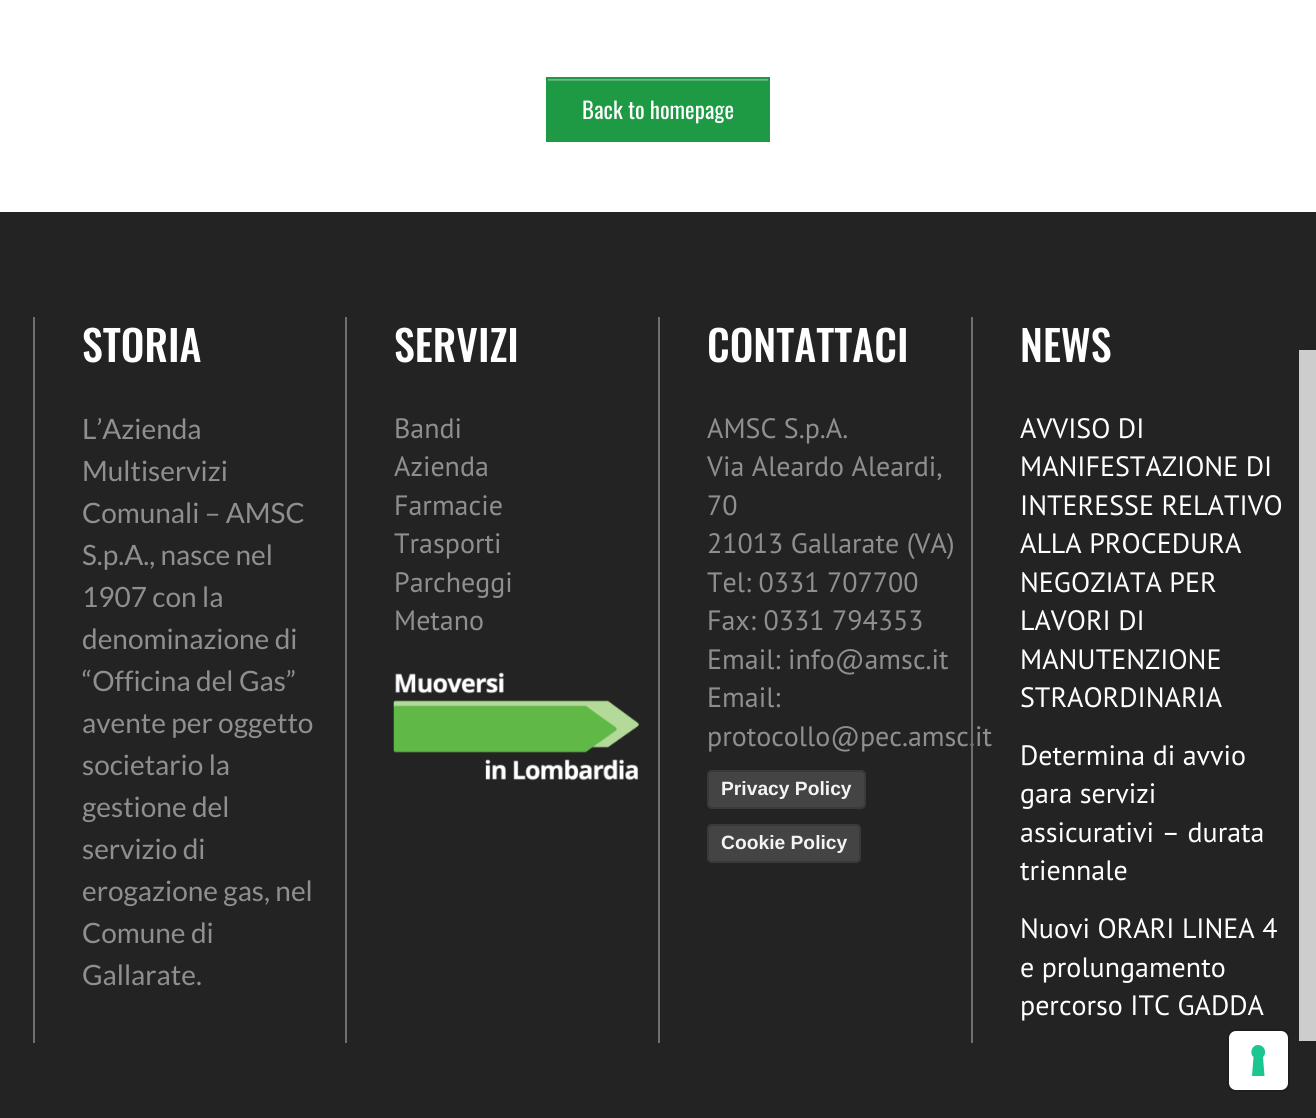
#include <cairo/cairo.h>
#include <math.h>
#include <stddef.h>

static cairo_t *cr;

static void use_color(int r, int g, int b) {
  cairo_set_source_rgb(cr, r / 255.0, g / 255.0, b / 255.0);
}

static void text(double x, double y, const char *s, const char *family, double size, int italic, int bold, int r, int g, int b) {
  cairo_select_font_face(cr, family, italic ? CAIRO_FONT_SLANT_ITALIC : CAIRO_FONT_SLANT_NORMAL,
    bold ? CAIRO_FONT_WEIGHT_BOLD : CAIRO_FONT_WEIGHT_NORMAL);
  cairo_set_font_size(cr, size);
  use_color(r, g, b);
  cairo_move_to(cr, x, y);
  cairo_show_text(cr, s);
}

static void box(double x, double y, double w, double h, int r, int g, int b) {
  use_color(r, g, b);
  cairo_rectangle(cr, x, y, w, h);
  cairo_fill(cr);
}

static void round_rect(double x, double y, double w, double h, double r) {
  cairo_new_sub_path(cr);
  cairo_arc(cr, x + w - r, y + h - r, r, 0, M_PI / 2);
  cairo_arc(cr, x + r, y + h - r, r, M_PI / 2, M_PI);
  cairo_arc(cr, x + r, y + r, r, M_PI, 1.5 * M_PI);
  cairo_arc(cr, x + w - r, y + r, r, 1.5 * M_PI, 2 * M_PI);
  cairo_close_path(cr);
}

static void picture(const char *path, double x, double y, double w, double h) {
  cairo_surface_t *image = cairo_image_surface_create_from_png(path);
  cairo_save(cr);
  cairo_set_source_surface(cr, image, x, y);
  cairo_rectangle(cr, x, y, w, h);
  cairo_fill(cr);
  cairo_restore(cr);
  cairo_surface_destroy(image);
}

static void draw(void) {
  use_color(255, 255, 255);
  cairo_paint(cr);
  box(548, 79, 220, 61, 30, 153, 68);
  picture("img_01.png", 548, 79, 220, 2);
  cairo_rectangle(cr, 547, 78, 222, 63);
  cairo_stroke(cr);
  box(0, 212, 1316, 906, 35, 35, 35);
  box(33, 317, 2, 726, 111, 111, 111);
  box(345, 317, 2, 726, 111, 111, 111);
  picture("img_02.png", 393, 672, 246, 109);
  box(658, 317, 2, 726, 111, 111, 111);
  use_color(68, 68, 68);
  round_rect(707, 770, 159, 39, 5);
  cairo_fill(cr);
  round_rect(708, 771, 157, 37, 4);
  cairo_set_source_rgba(cr, 0, 0, 0, 0.15);
  cairo_stroke(cr);
  use_color(68, 68, 68);
  round_rect(707, 824, 154, 39, 5);
  cairo_fill(cr);
  round_rect(708, 825, 152, 37, 4);
  cairo_set_source_rgba(cr, 0, 0, 0, 0.15);
  cairo_stroke(cr);
  box(1299, 350, 17, 691, 205, 205, 205);
  round_rect(1228, 1030, 61, 61, 8);
  use_color(30, 30, 30);
  cairo_stroke(cr);
  use_color(255, 255, 255);
  round_rect(1229, 1031, 59, 59, 7);
  cairo_fill(cr);
  use_color(28, 198, 145);
  cairo_set_fill_rule(cr, CAIRO_FILL_RULE_EVEN_ODD);
  cairo_new_path(cr);
  cairo_move_to(cr, 1258, 1045);
  cairo_curve_to(cr, 1264.5, 1045, 1267.5, 1053, 1263, 1057);
  cairo_line_to(cr, 1264.5, 1076);
  cairo_line_to(cr, 1252, 1076);
  cairo_line_to(cr, 1253.5, 1057);
  cairo_curve_to(cr, 1249, 1053, 1252, 1045, 1258, 1045);
  cairo_close_path(cr);
  cairo_fill(cr);
  text(582, 119, "Back to homepage", "Oswald", 22.75, 0, 0, 255, 255, 255);
  text(82, 362, "STORIA", "Oswald Medium", 42, 0, 0, 255, 255, 255);
  text(82, 439, "L’Azienda", "Lato", 28, 0, 0, 143, 143, 143);
  text(82, 481, "Multiservizi", "Lato", 28, 0, 0, 143, 143, 143);
  text(82, 523, "Comunali – AMSC", "Lato", 28, 0, 0, 143, 143, 143);
  text(82, 565, "S.p.A., nasce nel", "Lato", 28, 0, 0, 143, 143, 143);
  text(82, 607, "1907 con la", "Lato", 28, 0, 0, 143, 143, 143);
  text(82, 649, "denominazione di", "Lato", 28, 0, 0, 143, 143, 143);
  text(82, 691, "“Officina del Gas”", "Lato", 28, 0, 0, 143, 143, 143);
  text(82, 733, "avente per oggetto", "Lato", 28, 0, 0, 143, 143, 143);
  text(82, 775, "societario la", "Lato", 28, 0, 0, 143, 143, 143);
  text(82, 817, "gestione del", "Lato", 28, 0, 0, 143, 143, 143);
  text(82, 859, "servizio di", "Lato", 28, 0, 0, 143, 143, 143);
  text(82, 901, "erogazione gas, nel", "Lato", 28, 0, 0, 143, 143, 143);
  text(82, 943, "Comune di", "Lato", 28, 0, 0, 143, 143, 143);
  text(82, 985, "Gallarate.", "Lato", 28, 0, 0, 143, 143, 143);
  text(394, 362, "SERVIZI", "Oswald Medium", 42, 0, 0, 255, 255, 255);
  text(394, 438, "Bandi", "PT Sans", 28, 0, 0, 143, 143, 143);
  text(394, 476, "Azienda", "PT Sans", 28, 0, 0, 143, 143, 143);
  text(394, 515, "Farmacie", "PT Sans", 28, 0, 0, 143, 143, 143);
  text(394, 553, "Trasporti", "PT Sans", 28, 0, 0, 143, 143, 143);
  text(394, 592, "Parcheggi", "PT Sans", 28, 0, 0, 143, 143, 143);
  text(394, 630, "Metano", "PT Sans", 28, 0, 0, 143, 143, 143);
  text(707, 362, "CONTATTACI", "Oswald Medium", 42, 0, 0, 255, 255, 255);
  text(707, 438, "AMSC S.p.A.", "PT Sans", 28, 0, 0, 143, 143, 143);
  text(707, 476, "Via Aleardo Aleardi,", "PT Sans", 28, 0, 0, 143, 143, 143);
  text(707, 515, "70", "PT Sans", 28, 0, 0, 143, 143, 143);
  text(707, 553, "21013 Gallarate (VA)", "PT Sans", 28, 0, 0, 143, 143, 143);
  text(707, 592, "Tel: 0331 707700", "PT Sans", 28, 0, 0, 143, 143, 143);
  text(707, 630, "Fax: 0331 794353", "PT Sans", 28, 0, 0, 143, 143, 143);
  text(707, 669, "Email: info@amsc.it", "PT Sans", 28, 0, 0, 143, 143, 143);
  text(707, 707, "Email:", "PT Sans", 28, 0, 0, 143, 143, 143);
  text(707, 746, "protocollo@pec.amsc.it", "PT Sans", 28, 0, 0, 143, 143, 143);
  text(721, 795, "Privacy Policy", "Liberation Sans", 19.25, 0, 1, 244, 244, 244);
  text(721, 849, "Cookie Policy", "Liberation Sans", 19.25, 0, 1, 244, 244, 244);
  box(971, 317, 2, 726, 111, 111, 111);
  text(1020, 362, "NEWS", "Oswald Medium", 42, 0, 0, 255, 255, 255);
  text(1020, 438, "AVVISO DI", "PT Sans", 28, 0, 0, 255, 255, 255);
  text(1020, 476, "MANIFESTAZIONE DI", "PT Sans", 28, 0, 0, 255, 255, 255);
  text(1020, 515, "INTERESSE RELATIVO", "PT Sans", 28, 0, 0, 255, 255, 255);
  text(1020, 553, "ALLA PROCEDURA", "PT Sans", 28, 0, 0, 255, 255, 255);
  text(1020, 592, "NEGOZIATA PER", "PT Sans", 28, 0, 0, 255, 255, 255);
  text(1020, 630, "LAVORI DI", "PT Sans", 28, 0, 0, 255, 255, 255);
  text(1020, 669, "MANUTENZIONE", "PT Sans", 28, 0, 0, 255, 255, 255);
  text(1020, 707, "STRAORDINARIA", "PT Sans", 28, 0, 0, 255, 255, 255);
  text(1020, 765, "Determina di avvio", "PT Sans", 28, 0, 0, 255, 255, 255);
  text(1020, 803, "gara servizi", "PT Sans", 28, 0, 0, 255, 255, 255);
  text(1020, 842, "assicurativi – durata", "PT Sans", 28, 0, 0, 255, 255, 255);
  text(1020, 880, "triennale", "PT Sans", 28, 0, 0, 255, 255, 255);
  text(1020, 938, "Nuovi ORARI LINEA 4", "PT Sans", 28, 0, 0, 255, 255, 255);
  text(1020, 977, "e prolungamento", "PT Sans", 28, 0, 0, 255, 255, 255);
  text(1020, 1015, "percorso ITC GADDA", "PT Sans", 28, 0, 0, 255, 255, 255);
}

int main(void) {
  cairo_surface_t *surface = cairo_image_surface_create(CAIRO_FORMAT_RGB24, 1316, 1118);
  cr = cairo_create(surface);
  cairo_font_options_t *options = cairo_font_options_create();
  cairo_font_options_set_hint_metrics(options, CAIRO_HINT_METRICS_OFF);
  cairo_font_options_set_hint_style(options, CAIRO_HINT_STYLE_NONE);
  cairo_set_font_options(cr, options);
  cairo_set_miter_limit(cr, 4);
  draw();
  cairo_surface_write_to_png(surface, "out.png");
  cairo_font_options_destroy(options);
  cairo_destroy(cr);
  cairo_surface_destroy(surface);
  return 0;
}
